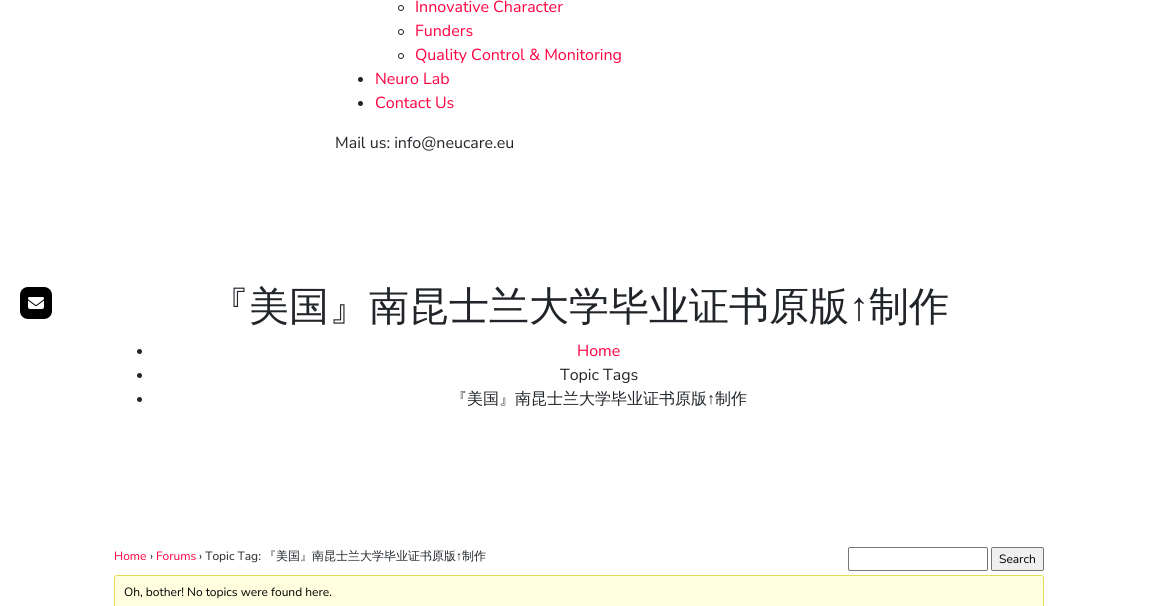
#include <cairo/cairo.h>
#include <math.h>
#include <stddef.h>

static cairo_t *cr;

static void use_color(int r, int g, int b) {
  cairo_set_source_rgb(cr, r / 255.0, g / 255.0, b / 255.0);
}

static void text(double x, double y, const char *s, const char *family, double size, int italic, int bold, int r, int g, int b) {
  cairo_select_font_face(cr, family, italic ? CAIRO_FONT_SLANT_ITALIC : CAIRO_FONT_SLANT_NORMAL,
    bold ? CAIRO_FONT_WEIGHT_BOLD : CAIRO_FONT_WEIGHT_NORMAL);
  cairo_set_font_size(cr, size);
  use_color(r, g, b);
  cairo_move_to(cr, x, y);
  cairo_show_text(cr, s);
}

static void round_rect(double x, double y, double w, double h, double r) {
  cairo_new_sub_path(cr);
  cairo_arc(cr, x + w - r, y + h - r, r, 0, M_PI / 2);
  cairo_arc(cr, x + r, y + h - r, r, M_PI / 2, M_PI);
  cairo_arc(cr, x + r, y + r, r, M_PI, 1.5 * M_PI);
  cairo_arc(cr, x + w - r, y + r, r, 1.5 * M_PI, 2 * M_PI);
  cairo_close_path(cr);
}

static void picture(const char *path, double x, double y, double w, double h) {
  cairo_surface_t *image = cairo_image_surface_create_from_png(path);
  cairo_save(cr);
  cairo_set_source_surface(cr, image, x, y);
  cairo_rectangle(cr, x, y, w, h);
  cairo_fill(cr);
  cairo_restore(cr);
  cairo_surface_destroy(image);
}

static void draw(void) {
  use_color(255, 255, 255);
  cairo_paint(cr);
  use_color(0, 0, 0);
  round_rect(20, 287, 32, 32, 8);
  cairo_fill(cr);
  picture("img_01.png", 28, 297, 16, 12);
  cairo_arc(cr, 401, 8, 2.5, 0, 2 * M_PI);
  use_color(33, 37, 41);
  cairo_set_line_width(cr, 1);
  cairo_stroke(cr);
  cairo_arc(cr, 401, 32, 2.5, 0, 2 * M_PI);
  cairo_stroke(cr);
  cairo_arc(cr, 401, 56, 2.5, 0, 2 * M_PI);
  cairo_stroke(cr);
  cairo_arc(cr, 360.5, 79.5, 2.5, 0, 2 * M_PI);
  cairo_fill(cr);
  cairo_arc(cr, 360.5, 103.5, 2.5, 0, 2 * M_PI);
  cairo_fill(cr);
  cairo_arc(cr, 139.5, 351.5, 2.5, 0, 2 * M_PI);
  cairo_fill(cr);
  cairo_arc(cr, 139.5, 375.5, 2.5, 0, 2 * M_PI);
  cairo_fill(cr);
  cairo_arc(cr, 139.5, 399.5, 2.5, 0, 2 * M_PI);
  cairo_fill(cr);
  round_rect(848.5, 547.5, 139, 23, 1.5);
  use_color(118, 118, 118);
  cairo_stroke(cr);
  use_color(239, 239, 239);
  round_rect(991.5, 547.5, 52, 23, 1.5);
  cairo_fill_preserve(cr);
  use_color(118, 118, 118);
  cairo_stroke(cr);
  use_color(255, 255, 224);
  round_rect(114.5, 575.5, 929, 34, 2.5);
  cairo_fill_preserve(cr);
  use_color(230, 219, 85);
  cairo_stroke(cr);
  text(415, 12, "Innovative Character", "Nunito Sans", 16, 0, 0, 255, 0, 64);
  text(415, 36, "Funders", "Nunito Sans", 16, 0, 0, 255, 0, 64);
  text(415, 60, "Quality Control & Monitoring", "Nunito Sans", 16, 0, 0, 255, 0, 64);
  text(375, 84, "Neuro Lab", "Nunito Sans", 16, 0, 0, 255, 0, 64);
  text(375, 108, "Contact Us", "Nunito Sans", 16, 0, 0, 255, 0, 64);
  text(335, 148, "Mail us: info@neucare.eu", "Nunito Sans", 16, 0, 0, 33, 37, 41);
  text(209, 320, "『美国』南昆士兰大学毕业证书原版", "WenQuanYi Zen Hei Medium", 40, 0, 0, 33, 37, 41);
  text(849, 320, "↑", "Liberation Serif", 40, 0, 0, 33, 37, 41);
  text(869, 320, "制作", "WenQuanYi Zen Hei Medium", 40, 0, 0, 33, 37, 41);
  text(577, 356, "Home", "Nunito Sans", 16, 0, 0, 255, 0, 64);
  text(560, 380, "Topic Tags", "Nunito Sans", 16, 0, 0, 33, 37, 41);
  text(451, 404, "『美国』南昆士兰大学毕业证书原版", "WenQuanYi Zen Hei Medium", 16, 0, 0, 33, 37, 41);
  text(707, 404, "↑", "Liberation Serif", 16, 0, 0, 33, 37, 41);
  text(715, 404, "制作", "WenQuanYi Zen Hei Medium", 16, 0, 0, 33, 37, 41);
  text(114, 560, "Home", "Nunito Sans", 12, 0, 0, 255, 0, 64);
  text(150, 560, "›", "Nunito Sans", 12, 0, 0, 33, 37, 41);
  text(156, 560, "Forums", "Nunito Sans", 12, 0, 0, 255, 0, 64);
  text(199, 560, "› Topic Tag:", "Nunito Sans", 12, 0, 0, 33, 37, 41);
  text(264, 560, "『美国』南昆士兰大学毕业证书原版", "WenQuanYi Zen Hei Medium", 12, 0, 0, 33, 37, 41);
  text(456, 560, "↑", "Liberation Serif", 12, 0, 0, 33, 37, 41);
  text(462, 560, "制作", "WenQuanYi Zen Hei Medium", 12, 0, 0, 33, 37, 41);
  text(999, 563, "Search", "Nunito Sans", 12, 0, 0, 0, 0, 0);
  text(124, 596, "Oh, bother! No topics were found here.", "Nunito Sans", 12, 0, 0, 0, 0, 0);
}

int main(void) {
  cairo_surface_t *surface = cairo_image_surface_create(CAIRO_FORMAT_RGB24, 1158, 606);
  cr = cairo_create(surface);
  cairo_font_options_t *options = cairo_font_options_create();
  cairo_font_options_set_hint_metrics(options, CAIRO_HINT_METRICS_OFF);
  cairo_font_options_set_hint_style(options, CAIRO_HINT_STYLE_NONE);
  cairo_set_font_options(cr, options);
  cairo_set_miter_limit(cr, 4);
  draw();
  cairo_surface_write_to_png(surface, "out.png");
  cairo_font_options_destroy(options);
  cairo_destroy(cr);
  cairo_surface_destroy(surface);
  return 0;
}
